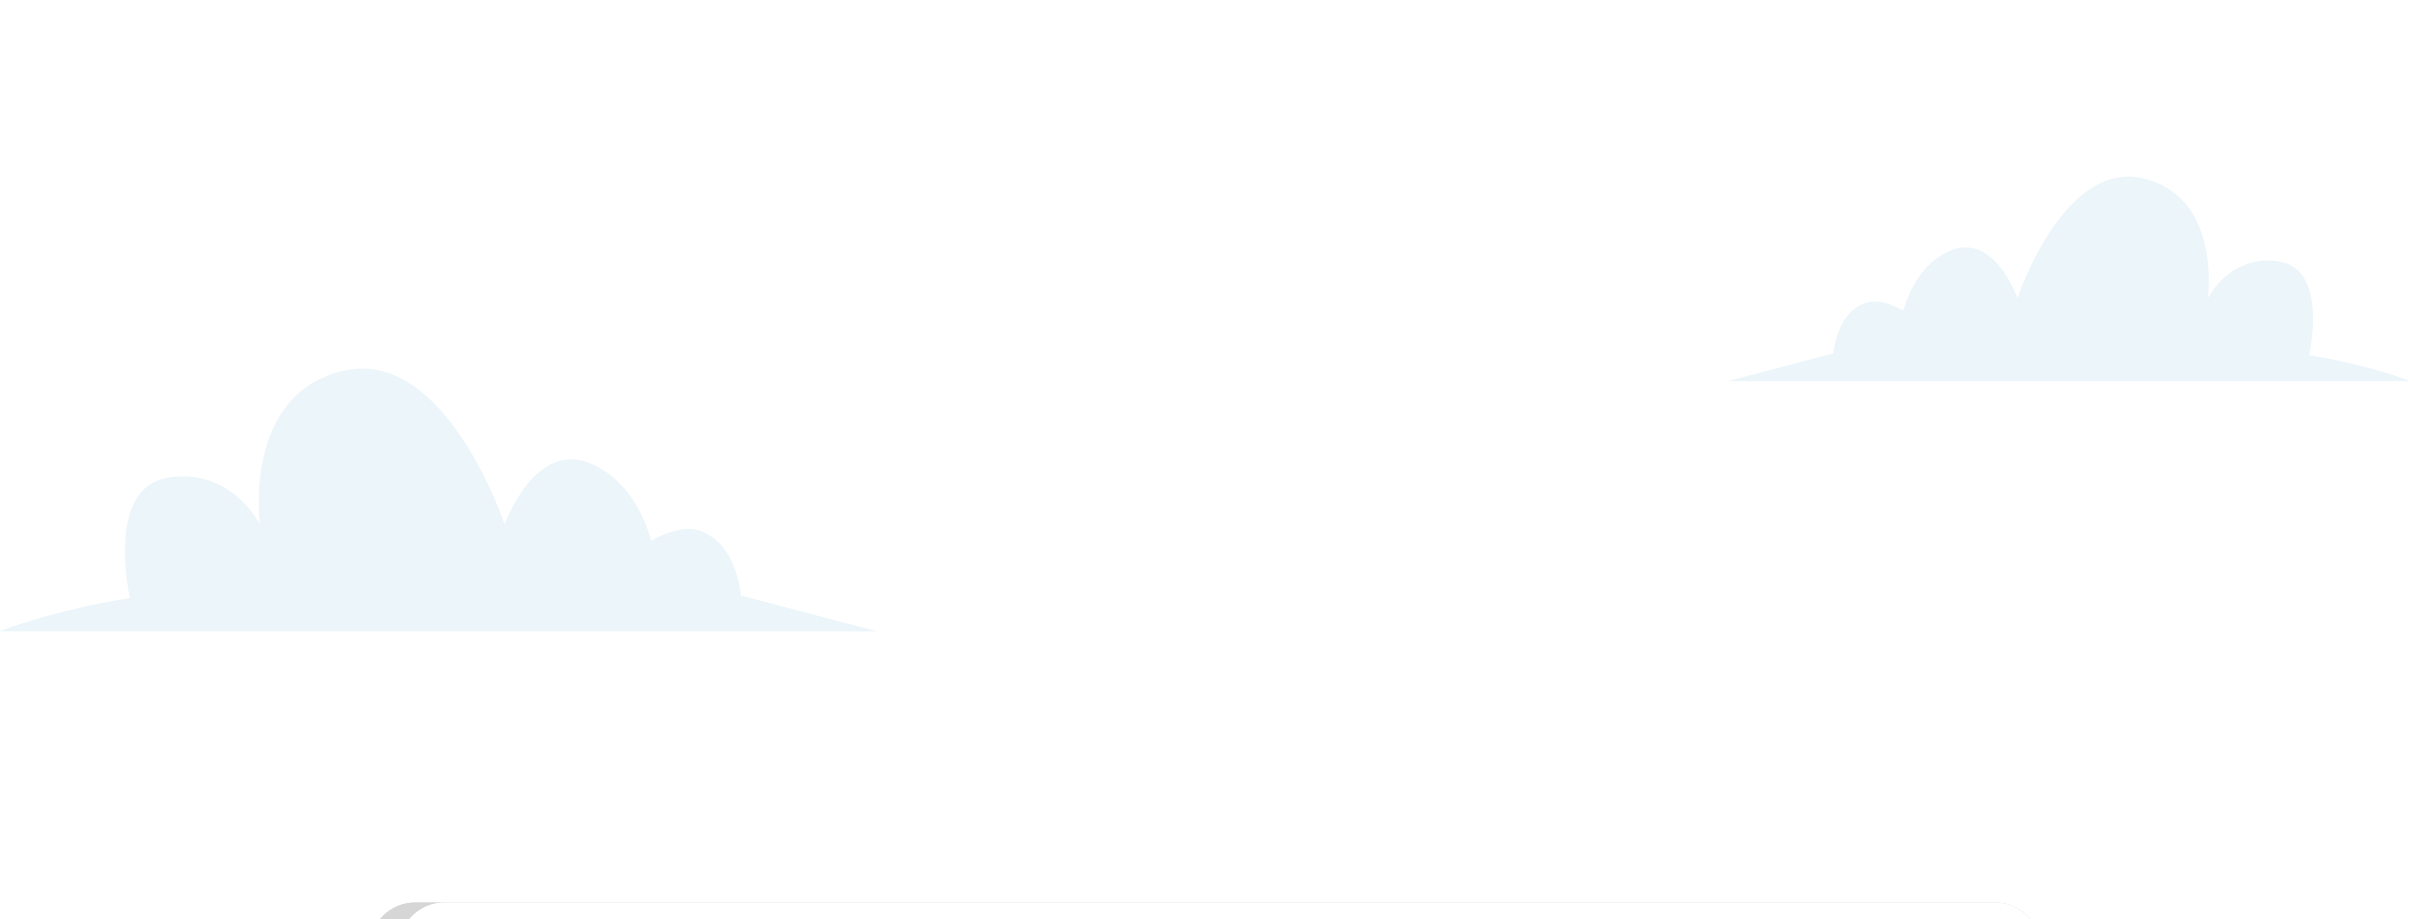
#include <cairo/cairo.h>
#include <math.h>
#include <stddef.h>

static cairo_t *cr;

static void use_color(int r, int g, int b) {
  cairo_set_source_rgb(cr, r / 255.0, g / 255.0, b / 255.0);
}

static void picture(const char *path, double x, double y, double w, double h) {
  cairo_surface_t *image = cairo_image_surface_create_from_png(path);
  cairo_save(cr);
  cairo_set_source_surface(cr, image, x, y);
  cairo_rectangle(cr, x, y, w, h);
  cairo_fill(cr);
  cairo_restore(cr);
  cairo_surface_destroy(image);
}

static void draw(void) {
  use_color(255, 255, 255);
  cairo_paint(cr);
  picture("img_01.png", 0, 176, 2409, 743);
}

int main(void) {
  cairo_surface_t *surface = cairo_image_surface_create(CAIRO_FORMAT_RGB24, 2414, 919);
  cr = cairo_create(surface);
  cairo_font_options_t *options = cairo_font_options_create();
  cairo_font_options_set_hint_metrics(options, CAIRO_HINT_METRICS_OFF);
  cairo_font_options_set_hint_style(options, CAIRO_HINT_STYLE_NONE);
  cairo_set_font_options(cr, options);
  cairo_set_miter_limit(cr, 4);
  draw();
  cairo_surface_write_to_png(surface, "out.png");
  cairo_font_options_destroy(options);
  cairo_destroy(cr);
  cairo_surface_destroy(surface);
  return 0;
}
